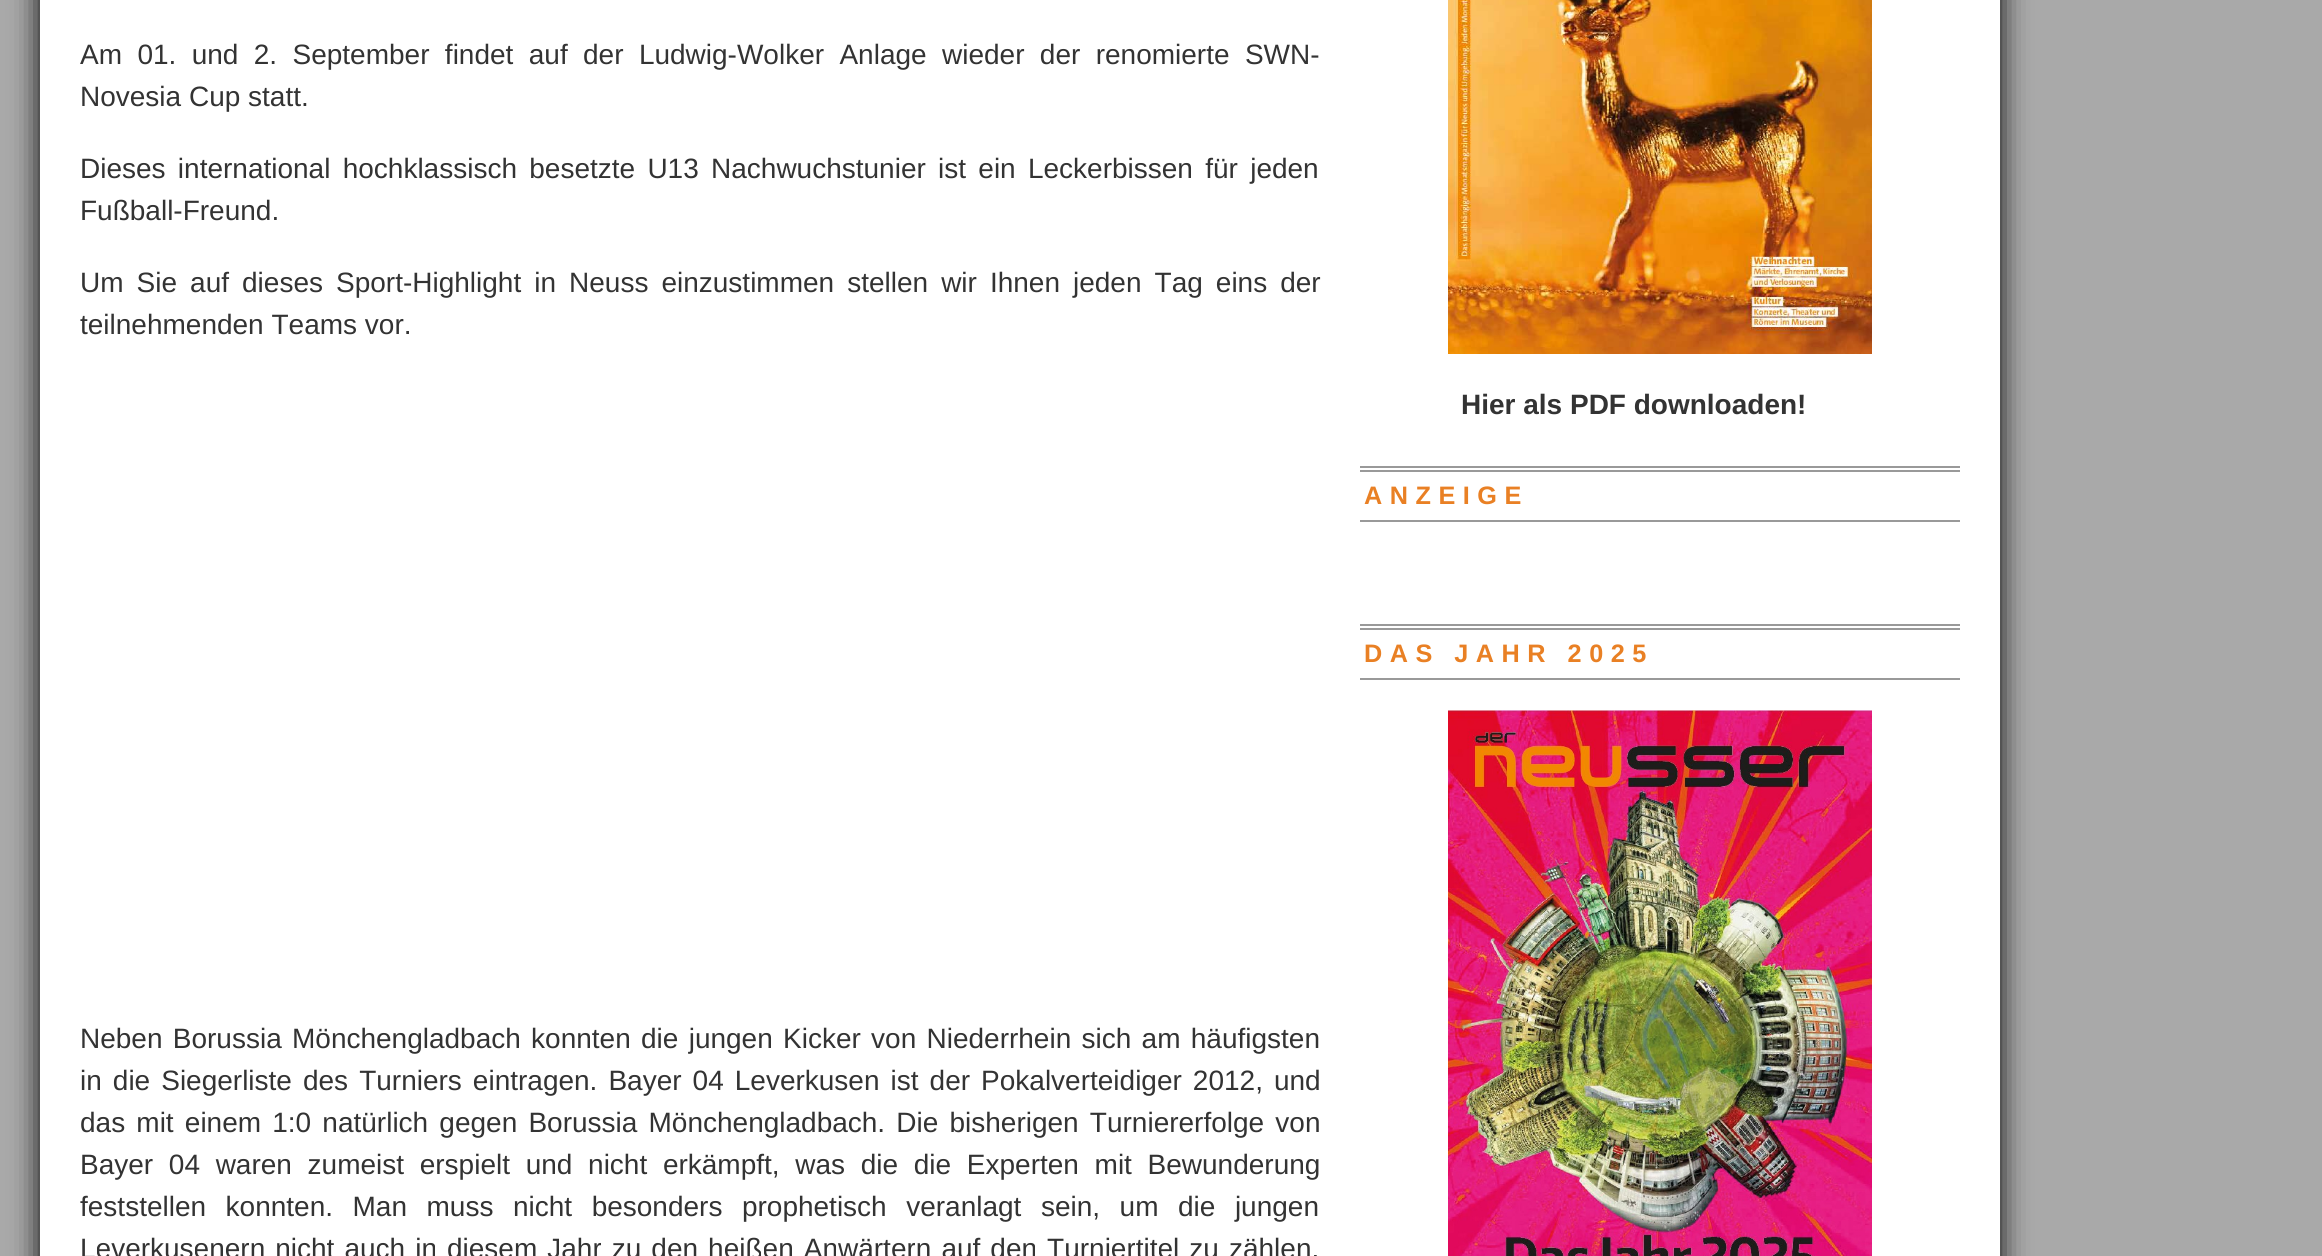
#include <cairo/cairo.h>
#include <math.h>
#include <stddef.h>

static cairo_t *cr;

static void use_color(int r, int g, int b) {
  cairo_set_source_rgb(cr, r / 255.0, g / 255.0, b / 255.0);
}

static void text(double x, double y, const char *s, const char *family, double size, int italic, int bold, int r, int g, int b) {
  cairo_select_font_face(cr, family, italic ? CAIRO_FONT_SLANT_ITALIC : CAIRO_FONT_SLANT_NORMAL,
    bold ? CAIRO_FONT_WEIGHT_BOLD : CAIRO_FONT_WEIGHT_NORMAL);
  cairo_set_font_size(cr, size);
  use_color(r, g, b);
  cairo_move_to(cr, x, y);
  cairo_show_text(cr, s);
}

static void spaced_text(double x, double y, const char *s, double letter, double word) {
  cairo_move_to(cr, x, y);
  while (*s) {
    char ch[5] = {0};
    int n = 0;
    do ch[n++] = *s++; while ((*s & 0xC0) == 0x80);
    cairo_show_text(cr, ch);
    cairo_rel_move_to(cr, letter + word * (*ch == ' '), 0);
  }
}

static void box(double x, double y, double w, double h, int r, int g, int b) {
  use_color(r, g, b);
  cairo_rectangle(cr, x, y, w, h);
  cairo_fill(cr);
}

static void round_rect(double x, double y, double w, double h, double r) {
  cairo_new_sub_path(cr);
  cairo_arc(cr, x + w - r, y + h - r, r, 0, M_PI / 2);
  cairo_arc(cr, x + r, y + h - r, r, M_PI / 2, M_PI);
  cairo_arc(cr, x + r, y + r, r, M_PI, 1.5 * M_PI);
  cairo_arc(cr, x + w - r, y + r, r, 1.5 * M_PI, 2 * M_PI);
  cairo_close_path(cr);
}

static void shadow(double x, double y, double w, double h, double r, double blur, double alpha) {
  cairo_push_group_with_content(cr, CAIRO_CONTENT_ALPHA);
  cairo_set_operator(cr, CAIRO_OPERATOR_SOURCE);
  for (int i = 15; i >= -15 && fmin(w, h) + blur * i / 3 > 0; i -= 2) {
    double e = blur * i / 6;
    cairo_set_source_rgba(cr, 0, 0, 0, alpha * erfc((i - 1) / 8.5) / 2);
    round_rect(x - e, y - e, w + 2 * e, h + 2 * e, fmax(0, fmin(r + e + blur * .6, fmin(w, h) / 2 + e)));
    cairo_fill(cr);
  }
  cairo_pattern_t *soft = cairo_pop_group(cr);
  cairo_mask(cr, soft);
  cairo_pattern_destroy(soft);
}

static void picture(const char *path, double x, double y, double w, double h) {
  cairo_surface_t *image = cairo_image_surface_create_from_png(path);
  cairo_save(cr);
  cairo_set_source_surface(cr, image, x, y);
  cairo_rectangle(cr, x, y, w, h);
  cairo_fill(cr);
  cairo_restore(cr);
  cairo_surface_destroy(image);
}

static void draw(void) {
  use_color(169, 169, 169);
  cairo_paint(cr);
  use_color(0, 0, 0);
  shadow(40, -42, 1960, 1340, 0, 14, 1);
  box(40, 0, 1960, 1256, 255, 255, 255);
  picture("img_01.png", 1448, 0, 424, 354);
  box(1360, 466, 600, 2, 153, 153, 153);
  box(1360, 470, 600, 2, 153, 153, 153);
  box(1360, 520, 600, 2, 153, 153, 153);
  box(1360, 624, 600, 2, 153, 153, 153);
  box(1360, 628, 600, 2, 153, 153, 153);
  box(1360, 678, 600, 2, 153, 153, 153);
  picture("img_02.png", 1448, 710, 424, 546);
  cairo_select_font_face(cr, "Liberation Sans", CAIRO_FONT_SLANT_NORMAL, CAIRO_FONT_WEIGHT_NORMAL);
  cairo_set_font_size(cr, 28);
  use_color(51, 51, 51);
  spaced_text(80, 64, "Am 01. und 2. September findet auf der Ludwig-Wolker Anlage wieder der renomierte SWN-", 0, 7.6);
  text(80, 106, "Novesia Cup statt.", "Liberation Sans", 28, 0, 0, 51, 51, 51);
  spaced_text(80, 178, "Dieses international hochklassisch besetzte U13 Nachwuchstunier ist ein Leckerbissen für jeden", 0, 4.5);
  text(80, 220, "Fußball-Freund.", "Liberation Sans", 28, 0, 0, 51, 51, 51);
  spaced_text(80, 292, "Um Sie auf dieses Sport-Highlight in Neuss einzustimmen stellen wir Ihnen jeden Tag eins der", 0, 5.25);
  text(80, 334, "teilnehmenden Teams vor.", "Liberation Sans", 28, 0, 0, 51, 51, 51);
  spaced_text(80, 1048, "Neben Borussia Mönchengladbach konnten die jungen Kicker von Niederrhein sich am häufigsten", 0, 2.5);
  spaced_text(80, 1090, "in die Siegerliste des Turniers eintragen. Bayer 04 Leverkusen ist der Pokalverteidiger 2012, und", 0, 3.25);
  spaced_text(80, 1132, "das mit einem 1:0 natürlich gegen Borussia Mönchengladbach. Die bisherigen Turniererfolge von", 0, 3.4);
  spaced_text(80, 1174, "Bayer 04 waren zumeist erspielt und nicht erkämpft, was die die Experten mit Bewunderung", 0, 7.9);
  spaced_text(80, 1216, "feststellen konnten. Man muss nicht besonders prophetisch veranlagt sein, um die jungen", 0, 11.75);
  spaced_text(80, 1258, "Leverkusenern nicht auch in diesem Jahr zu den heißen Anwärtern auf den Turniertitel zu zählen.", 0, 2.25);
  text(1461, 414, "Hier als PDF downloaden!", "Liberation Sans", 28, 0, 1, 51, 51, 51);
  cairo_set_font_size(cr, 25.25);
  use_color(233, 128, 36);
  spaced_text(1364, 504, "ANZEIGE", 7.5, 0);
  spaced_text(1364, 662, "DAS JAHR 2025", 7.5, 0);
}

int main(void) {
  cairo_surface_t *surface = cairo_image_surface_create(CAIRO_FORMAT_RGB24, 2322, 1256);
  cr = cairo_create(surface);
  cairo_font_options_t *options = cairo_font_options_create();
  cairo_font_options_set_hint_metrics(options, CAIRO_HINT_METRICS_OFF);
  cairo_font_options_set_hint_style(options, CAIRO_HINT_STYLE_NONE);
  cairo_set_font_options(cr, options);
  cairo_set_miter_limit(cr, 4);
  draw();
  cairo_surface_write_to_png(surface, "out.png");
  cairo_font_options_destroy(options);
  cairo_destroy(cr);
  cairo_surface_destroy(surface);
  return 0;
}
